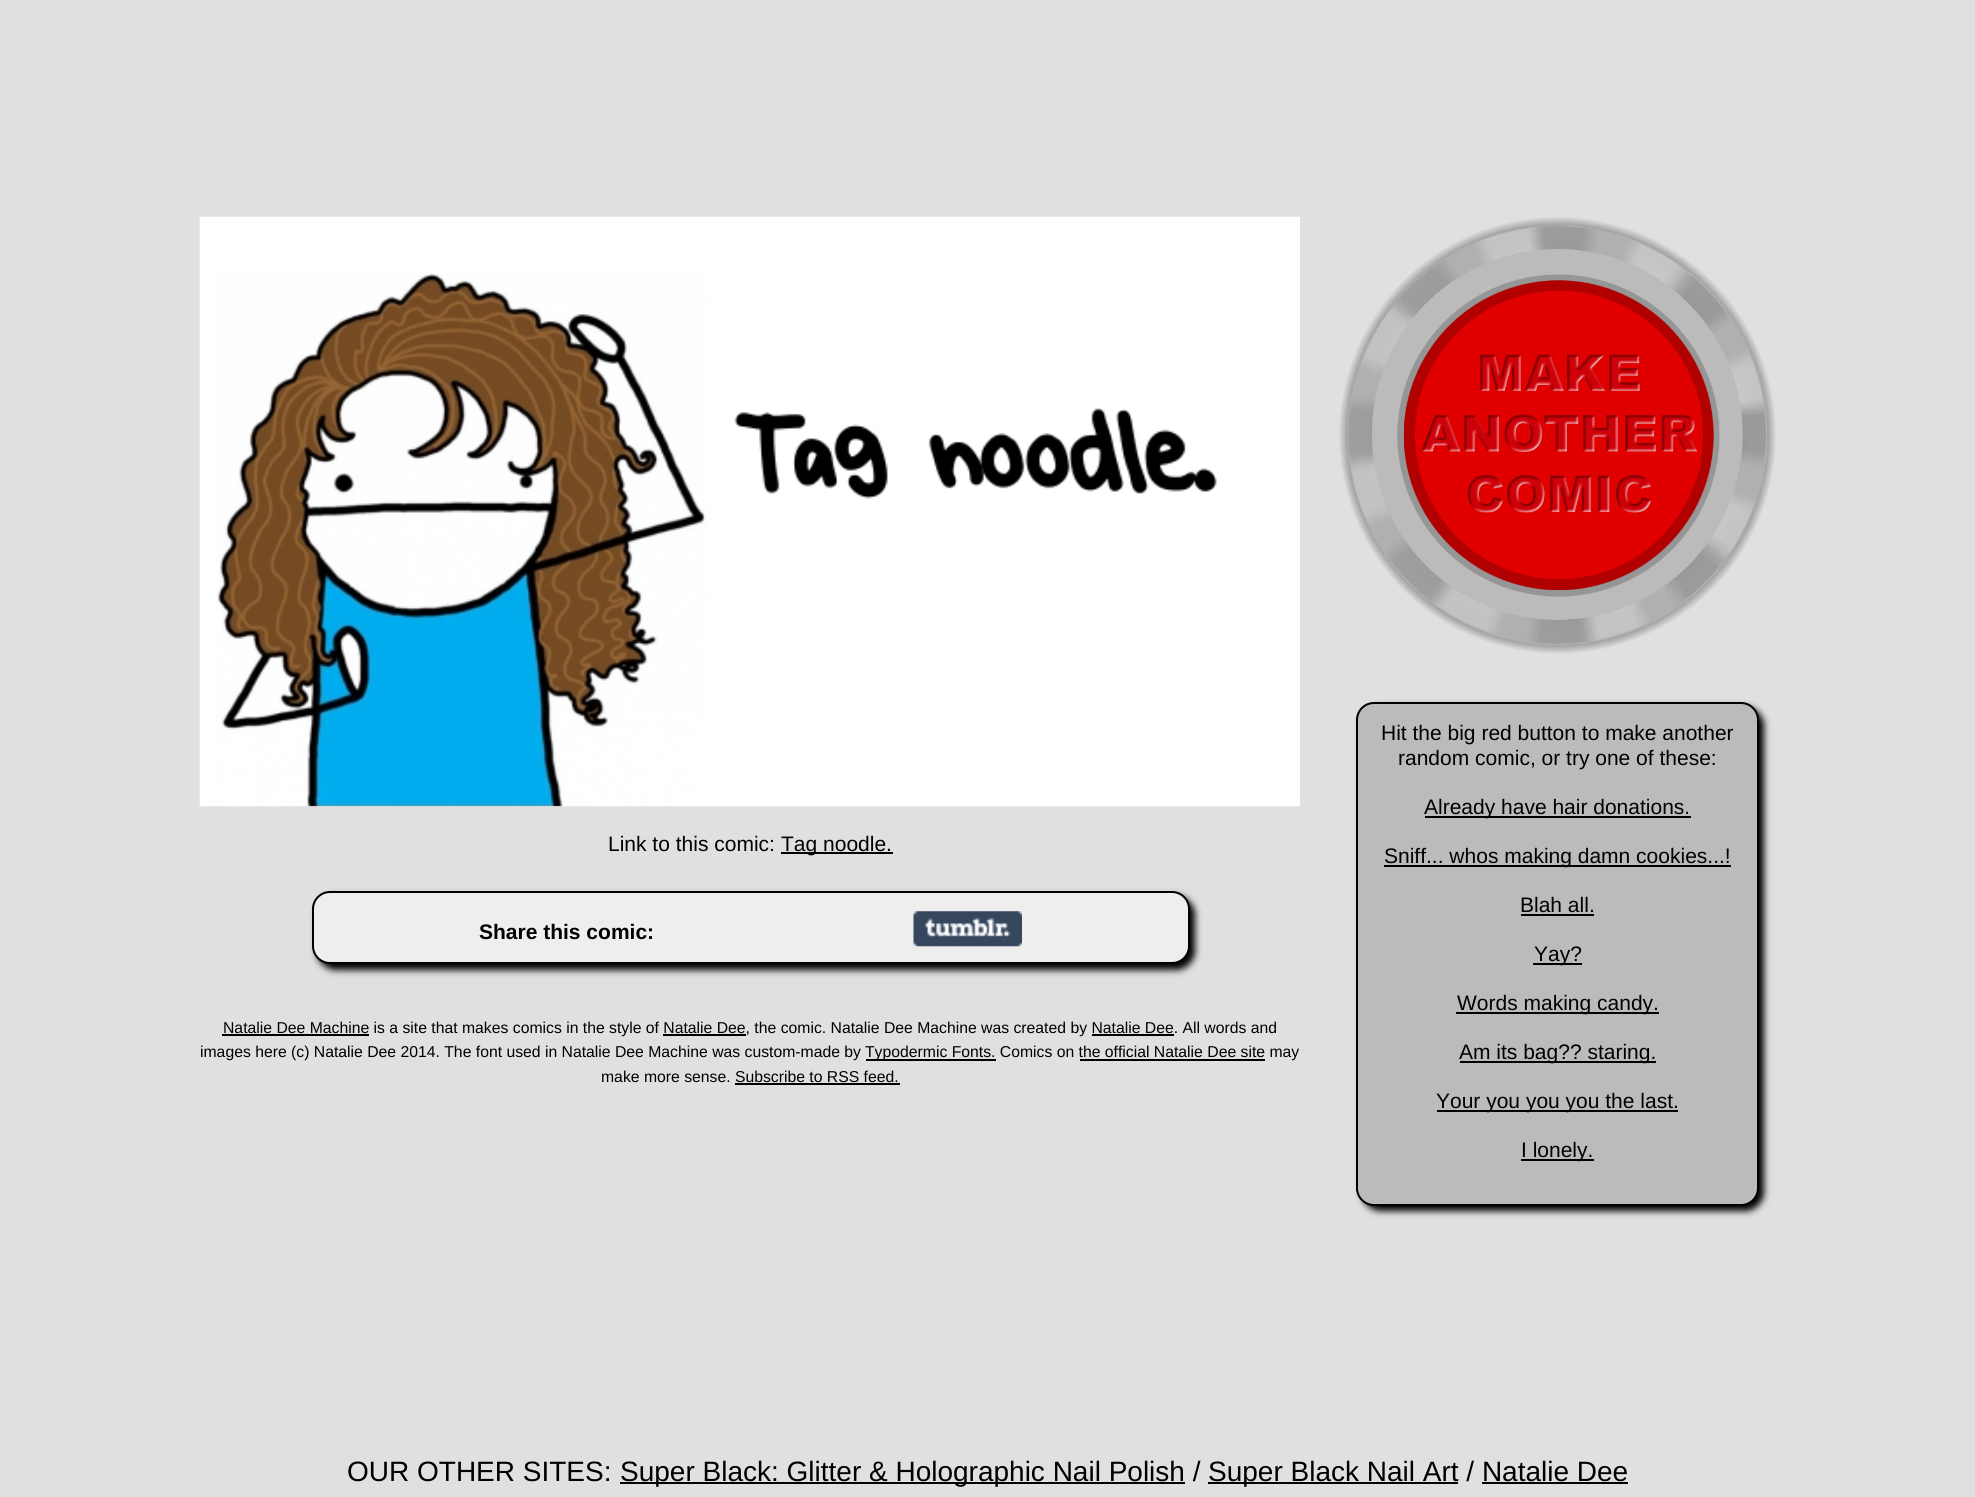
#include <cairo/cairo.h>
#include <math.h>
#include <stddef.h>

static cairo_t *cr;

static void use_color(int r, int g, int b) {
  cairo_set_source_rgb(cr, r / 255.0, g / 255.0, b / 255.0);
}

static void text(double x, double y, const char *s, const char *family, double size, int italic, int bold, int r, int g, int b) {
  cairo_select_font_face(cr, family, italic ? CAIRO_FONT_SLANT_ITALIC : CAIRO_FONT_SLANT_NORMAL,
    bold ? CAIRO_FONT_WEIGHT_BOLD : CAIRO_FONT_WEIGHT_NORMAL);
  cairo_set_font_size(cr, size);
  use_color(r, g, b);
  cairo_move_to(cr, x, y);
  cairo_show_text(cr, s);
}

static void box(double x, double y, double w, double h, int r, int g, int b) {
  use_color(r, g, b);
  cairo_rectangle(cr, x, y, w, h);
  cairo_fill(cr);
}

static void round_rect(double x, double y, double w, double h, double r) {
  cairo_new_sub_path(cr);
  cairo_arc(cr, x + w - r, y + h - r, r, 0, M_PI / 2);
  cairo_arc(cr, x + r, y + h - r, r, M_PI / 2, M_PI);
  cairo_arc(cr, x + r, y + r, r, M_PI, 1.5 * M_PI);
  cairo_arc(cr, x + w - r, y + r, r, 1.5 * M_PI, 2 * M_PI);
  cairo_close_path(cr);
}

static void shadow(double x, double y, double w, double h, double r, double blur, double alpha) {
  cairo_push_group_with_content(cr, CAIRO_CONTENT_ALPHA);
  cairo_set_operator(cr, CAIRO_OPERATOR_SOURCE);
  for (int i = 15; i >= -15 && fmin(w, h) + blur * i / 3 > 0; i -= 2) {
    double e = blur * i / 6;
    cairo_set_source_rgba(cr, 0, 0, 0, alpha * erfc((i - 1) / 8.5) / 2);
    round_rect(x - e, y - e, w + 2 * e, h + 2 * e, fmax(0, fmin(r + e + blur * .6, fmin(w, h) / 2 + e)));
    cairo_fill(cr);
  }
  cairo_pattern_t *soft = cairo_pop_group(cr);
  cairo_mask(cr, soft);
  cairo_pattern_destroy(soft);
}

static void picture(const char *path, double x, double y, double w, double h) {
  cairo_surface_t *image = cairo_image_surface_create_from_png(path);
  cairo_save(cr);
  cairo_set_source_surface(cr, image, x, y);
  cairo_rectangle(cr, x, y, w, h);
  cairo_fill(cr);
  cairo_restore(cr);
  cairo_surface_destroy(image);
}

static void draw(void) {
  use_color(224, 224, 224);
  cairo_paint(cr);
  picture("img_01.png", 199, 216, 1101, 591);
  box(781, 852, 112, 2, 0, 0, 0);
  use_color(0, 0, 0);
  shadow(317, 896, 878, 74, 18, 3.5, 1);
  use_color(238, 238, 238);
  round_rect(313, 892, 876, 71, 17);
  cairo_fill_preserve(cr);
  use_color(0, 0, 0);
  cairo_stroke(cr);
  picture("img_02.png", 913, 911, 109, 36);
  box(222, 1034, 147, 2, 0, 0, 0);
  box(663, 1034, 83, 2, 0, 0, 0);
  box(1092, 1034, 82, 2, 0, 0, 0);
  box(866, 1059, 130, 2, 0, 0, 0);
  box(1080, 1059, 185, 2, 0, 0, 0);
  box(735, 1083, 165, 2, 0, 0, 0);
  picture("img_03.png", 1339, 217, 437, 437);
  use_color(0, 0, 0);
  shadow(1362, 707, 402, 504, 18, 3.5, 1);
  use_color(187, 187, 187);
  round_rect(1357, 703, 401, 502, 17);
  cairo_fill_preserve(cr);
  use_color(0, 0, 0);
  cairo_stroke(cr);
  box(1425, 816, 266, 2, 0, 0, 0);
  box(1384, 865, 347, 2, 0, 0, 0);
  box(1521, 914, 73, 2, 0, 0, 0);
  box(1533, 963, 49, 2, 0, 0, 0);
  box(1456, 1012, 203, 2, 0, 0, 0);
  box(1460, 1061, 196, 2, 0, 0, 0);
  box(1437, 1110, 241, 2, 0, 0, 0);
  box(1521, 1159, 73, 2, 0, 0, 0);
  box(620, 1482, 565, 2, 0, 0, 0);
  box(1208, 1482, 250, 2, 0, 0, 0);
  box(1482, 1482, 146, 2, 0, 0, 0);
  text(608, 851, "Link to this comic:", "Liberation Sans", 21, 0, 0, 0, 0, 0);
  text(781, 851, "Tag noodle.", "Liberation Sans", 21, 0, 0, 0, 0, 0);
  text(479, 939, "Share this comic:", "Liberation Sans", 21, 0, 1, 0, 0, 0);
  text(223, 1033, "Natalie Dee Machine is a site that makes comics in the style of Natalie Dee, the comic. Natalie Dee Machine was created by Natalie Dee. All words and", "Liberation Sans", 15.75, 0, 0, 0, 0, 0);
  text(200, 1057, "images here (c) Natalie Dee 2014. The font used in Natalie Dee Machine was custom-made by", "Liberation Sans", 15.75, 0, 0, 0, 0, 0);
  text(865, 1057, "Typodermic Fonts. Comics on the official Natalie Dee site may", "Liberation Sans", 15.75, 0, 0, 0, 0, 0);
  text(601, 1082, "make more sense. Subscribe to RSS feed.", "Liberation Sans", 15.75, 0, 0, 0, 0, 0);
  text(1381, 740, "Hit the big red button to make another", "Liberation Sans", 21, 0, 0, 0, 0, 0);
  text(1398, 765, "random comic, or try one of these:", "Liberation Sans", 21, 0, 0, 0, 0, 0);
  text(1424, 814, "Already have hair donations.", "Liberation Sans", 21, 0, 0, 0, 0, 0);
  text(1384, 863, "Sniff... whos making damn cookies...!", "Liberation Sans", 21, 0, 0, 0, 0, 0);
  text(1520, 912, "Blah all.", "Liberation Sans", 21, 0, 0, 0, 0, 0);
  text(1534, 961, "Yay?", "Liberation Sans", 21, 0, 0, 0, 0, 0);
  text(1457, 1010, "Words making candy.", "Liberation Sans", 21, 0, 0, 0, 0, 0);
  text(1459, 1059, "Am its bag?\077 staring.", "Liberation Sans", 21, 0, 0, 0, 0, 0);
  text(1436, 1108, "Your you you you the last.", "Liberation Sans", 21, 0, 0, 0, 0, 0);
  text(1521, 1157, "I lonely.", "Liberation Sans", 21, 0, 0, 0, 0, 0);
  text(347, 1481, "OUR OTHER SITES:", "Liberation Sans", 28, 0, 0, 0, 0, 0);
  text(620, 1481, "Super Black: Glitter & Holographic Nail Polish /", "Liberation Sans", 28, 0, 0, 0, 0, 0);
  text(1208, 1481, "Super Black Nail Art / Natalie Dee", "Liberation Sans", 28, 0, 0, 0, 0, 0);
}

int main(void) {
  cairo_surface_t *surface = cairo_image_surface_create(CAIRO_FORMAT_RGB24, 1975, 1497);
  cr = cairo_create(surface);
  cairo_font_options_t *options = cairo_font_options_create();
  cairo_font_options_set_hint_metrics(options, CAIRO_HINT_METRICS_OFF);
  cairo_font_options_set_hint_style(options, CAIRO_HINT_STYLE_NONE);
  cairo_set_font_options(cr, options);
  cairo_set_miter_limit(cr, 4);
  draw();
  cairo_surface_write_to_png(surface, "out.png");
  cairo_font_options_destroy(options);
  cairo_destroy(cr);
  cairo_surface_destroy(surface);
  return 0;
}
